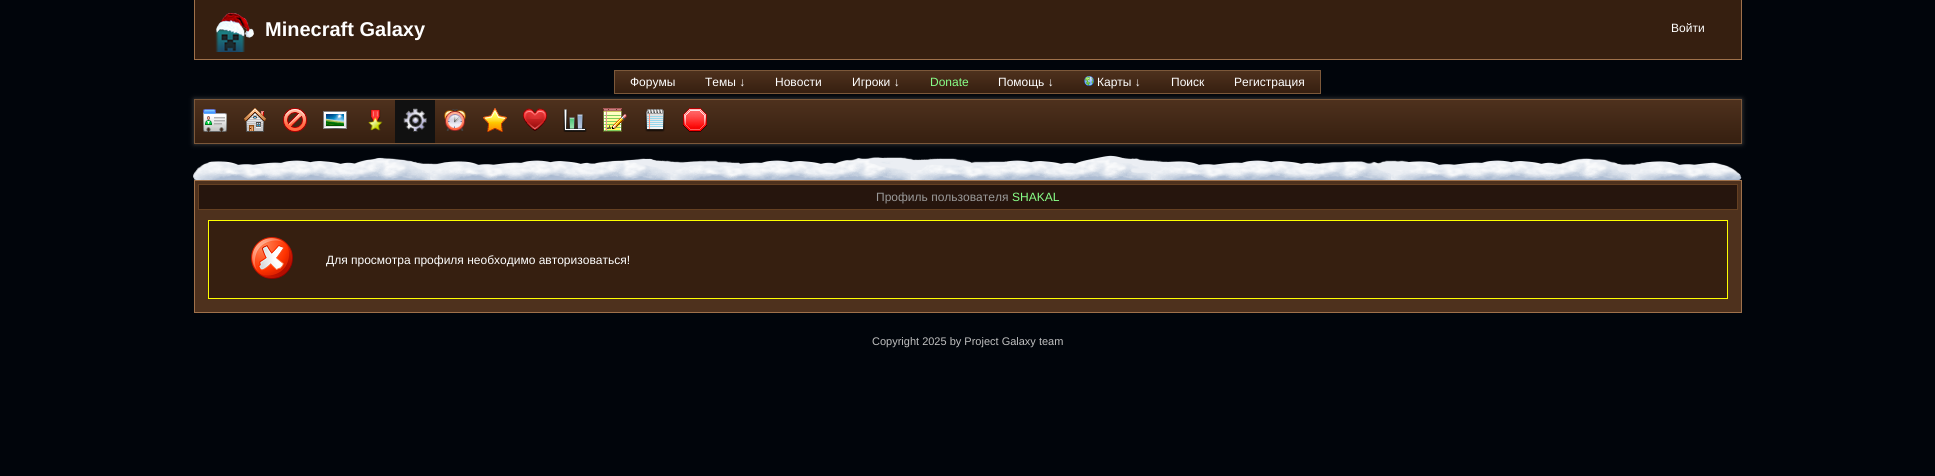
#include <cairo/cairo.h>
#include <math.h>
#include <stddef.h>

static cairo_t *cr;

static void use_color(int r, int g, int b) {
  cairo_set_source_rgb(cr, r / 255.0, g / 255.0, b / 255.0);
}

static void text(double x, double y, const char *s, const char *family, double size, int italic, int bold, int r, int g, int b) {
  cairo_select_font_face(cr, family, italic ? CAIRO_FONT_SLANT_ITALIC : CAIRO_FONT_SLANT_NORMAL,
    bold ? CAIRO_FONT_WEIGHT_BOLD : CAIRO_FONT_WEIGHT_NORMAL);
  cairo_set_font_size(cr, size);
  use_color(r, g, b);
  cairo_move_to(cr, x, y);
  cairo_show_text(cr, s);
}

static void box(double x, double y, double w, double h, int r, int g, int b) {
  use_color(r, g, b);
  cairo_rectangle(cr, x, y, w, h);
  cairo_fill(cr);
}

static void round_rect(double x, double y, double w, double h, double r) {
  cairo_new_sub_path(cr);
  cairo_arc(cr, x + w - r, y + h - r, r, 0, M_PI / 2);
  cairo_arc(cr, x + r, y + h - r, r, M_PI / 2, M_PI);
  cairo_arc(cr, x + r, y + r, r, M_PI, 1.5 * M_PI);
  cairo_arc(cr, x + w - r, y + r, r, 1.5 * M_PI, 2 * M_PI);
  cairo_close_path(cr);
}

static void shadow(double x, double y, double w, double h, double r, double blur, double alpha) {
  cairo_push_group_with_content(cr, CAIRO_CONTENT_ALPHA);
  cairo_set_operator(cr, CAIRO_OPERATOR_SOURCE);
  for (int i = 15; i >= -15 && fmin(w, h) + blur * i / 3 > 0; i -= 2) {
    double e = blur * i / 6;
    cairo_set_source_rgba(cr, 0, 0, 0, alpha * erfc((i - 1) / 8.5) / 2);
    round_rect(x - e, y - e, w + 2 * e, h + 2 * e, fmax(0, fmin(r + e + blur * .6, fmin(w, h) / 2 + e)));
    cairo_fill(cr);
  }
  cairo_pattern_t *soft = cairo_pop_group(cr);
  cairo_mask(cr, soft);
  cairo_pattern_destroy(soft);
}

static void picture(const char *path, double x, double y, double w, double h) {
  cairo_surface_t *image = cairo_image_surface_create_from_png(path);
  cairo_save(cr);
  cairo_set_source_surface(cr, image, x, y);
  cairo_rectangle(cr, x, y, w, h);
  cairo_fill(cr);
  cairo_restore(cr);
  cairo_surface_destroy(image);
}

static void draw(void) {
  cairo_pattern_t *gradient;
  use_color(1, 5, 11);
  cairo_paint(cr);
  box(195, 0, 1546, 59, 54, 31, 16);
  box(1741, 0, 1, 60, 159, 113, 75);
  box(194, 59, 1548, 1, 159, 113, 75);
  box(194, 0, 1, 60, 159, 113, 75);
  picture("img_01.png", 215, 13, 39, 39);
  use_color(68, 68, 68);
  shadow(194, 99, 1548, 45, 0, 2.5, 1);
  gradient = cairo_pattern_create_linear(615, 71, 615, 93);
  cairo_pattern_add_color_stop_rgba(gradient, 0, 0.306, 0.192, 0.114, 1);
  cairo_pattern_add_color_stop_rgba(gradient, 1, 0.212, 0.122, 0.063, 1);
  cairo_set_source(cr, gradient);
  cairo_pattern_destroy(gradient);
  cairo_rectangle(cr, 615, 71, 705, 22);
  cairo_fill(cr);
  cairo_rectangle(cr, 614.5, 70.5, 706, 23);
  use_color(124, 88, 58);
  cairo_set_line_width(cr, 1);
  cairo_stroke(cr);
  picture("img_02.png", 1084, 76, 10, 10);
  gradient = cairo_pattern_create_linear(195, 100, 195, 143);
  cairo_pattern_add_color_stop_rgba(gradient, 0, 0.306, 0.192, 0.114, 1);
  cairo_pattern_add_color_stop_rgba(gradient, 1, 0.212, 0.122, 0.063, 1);
  cairo_set_source(cr, gradient);
  cairo_pattern_destroy(gradient);
  cairo_rectangle(cr, 195, 100, 1546, 43);
  cairo_fill(cr);
  cairo_rectangle(cr, 194.5, 99.5, 1547, 44);
  use_color(124, 88, 58);
  cairo_stroke(cr);
  picture("img_03.png", 203, 109, 24, 23);
  picture("img_04.png", 244, 108, 22, 24);
  picture("img_05.png", 283, 108, 24, 24);
  picture("img_06.png", 323, 111, 24, 18);
  picture("img_07.png", 368, 109, 15, 22);
  box(395, 100, 40, 43, 17, 17, 17);
  picture("img_08.png", 403, 108, 24, 24);
  picture("img_09.png", 444, 109, 22, 22);
  picture("img_10.png", 483, 108, 24, 24);
  picture("img_11.png", 523, 108, 24, 23);
  picture("img_12.png", 563, 109, 24, 23);
  picture("img_13.png", 603, 108, 24, 24);
  picture("img_14.png", 645, 109, 20, 23);
  picture("img_15.png", 683, 108, 24, 24);
  picture("img_16.png", 193, 155, 1549, 25);
  use_color(78, 49, 29);
  cairo_rectangle(cr, 194.5, 180.5, 1547, 132);
  cairo_fill_preserve(cr);
  use_color(159, 113, 75);
  cairo_stroke(cr);
  use_color(38, 21, 13);
  cairo_rectangle(cr, 198.5, 184.5, 1539, 25);
  cairo_fill_preserve(cr);
  use_color(101, 64, 34);
  cairo_stroke(cr);
  use_color(54, 31, 16);
  cairo_rectangle(cr, 208.5, 220.5, 1519, 78);
  cairo_fill_preserve(cr);
  use_color(255, 255, 0);
  cairo_stroke(cr);
  picture("img_17.png", 251, 237, 42, 42);
  text(265, 36, "Minecraft Galaxy", "Liberation Sans", 20, 0, 1, 255, 255, 255);
  text(1671, 32, "Войти", "Liberation Sans", 12, 0, 0, 255, 255, 255);
  text(630, 86, "Форумы", "Liberation Sans", 12, 0, 0, 255, 255, 255);
  text(705, 86, "Темы ↓", "Liberation Sans", 12, 0, 0, 255, 255, 255);
  text(775, 86, "Новости", "Liberation Sans", 12, 0, 0, 255, 255, 255);
  text(852, 86, "Игроки ↓", "Liberation Sans", 12, 0, 0, 255, 255, 255);
  text(930, 86, "Donate", "Liberation Sans", 12, 0, 0, 136, 255, 136);
  text(998, 86, "Помощь ↓", "Liberation Sans", 12, 0, 0, 255, 255, 255);
  text(1097, 86, "Карты ↓", "Liberation Sans", 12, 0, 0, 255, 255, 255);
  text(1171, 86, "Поиск", "Liberation Sans", 12, 0, 0, 255, 255, 255);
  text(1234, 86, "Регистрация", "Liberation Sans", 12, 0, 0, 255, 255, 255);
  text(876, 201, "Профиль пользователя", "Liberation Sans", 12, 0, 0, 153, 153, 153);
  text(1012, 201, "SHAKAL", "Liberation Sans", 12, 0, 0, 136, 255, 136);
  text(326, 264, "Для просмотра профиля необходимо авторизоваться!", "Liberation Sans", 12, 0, 0, 255, 255, 255);
  text(872, 345, "Copyright 2025 by Project Galaxy team", "Liberation Sans", 11, 0, 0, 192, 192, 192);
}

int main(void) {
  cairo_surface_t *surface = cairo_image_surface_create(CAIRO_FORMAT_RGB24, 1935, 476);
  cr = cairo_create(surface);
  cairo_font_options_t *options = cairo_font_options_create();
  cairo_font_options_set_hint_metrics(options, CAIRO_HINT_METRICS_OFF);
  cairo_font_options_set_hint_style(options, CAIRO_HINT_STYLE_NONE);
  cairo_set_font_options(cr, options);
  cairo_set_miter_limit(cr, 4);
  draw();
  cairo_surface_write_to_png(surface, "out.png");
  cairo_font_options_destroy(options);
  cairo_destroy(cr);
  cairo_surface_destroy(surface);
  return 0;
}
